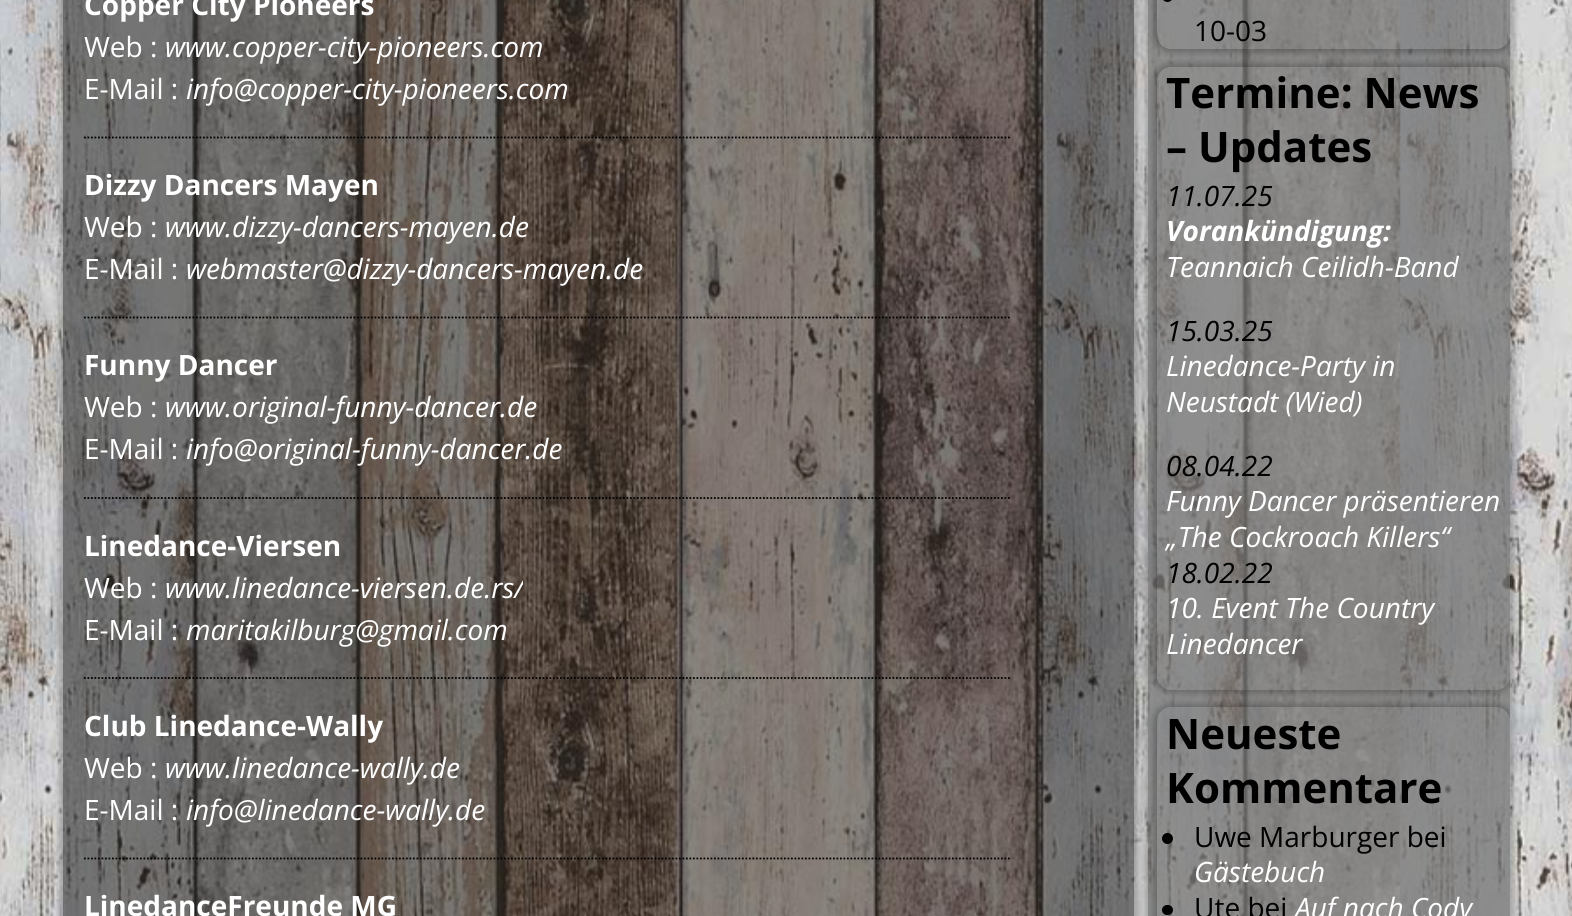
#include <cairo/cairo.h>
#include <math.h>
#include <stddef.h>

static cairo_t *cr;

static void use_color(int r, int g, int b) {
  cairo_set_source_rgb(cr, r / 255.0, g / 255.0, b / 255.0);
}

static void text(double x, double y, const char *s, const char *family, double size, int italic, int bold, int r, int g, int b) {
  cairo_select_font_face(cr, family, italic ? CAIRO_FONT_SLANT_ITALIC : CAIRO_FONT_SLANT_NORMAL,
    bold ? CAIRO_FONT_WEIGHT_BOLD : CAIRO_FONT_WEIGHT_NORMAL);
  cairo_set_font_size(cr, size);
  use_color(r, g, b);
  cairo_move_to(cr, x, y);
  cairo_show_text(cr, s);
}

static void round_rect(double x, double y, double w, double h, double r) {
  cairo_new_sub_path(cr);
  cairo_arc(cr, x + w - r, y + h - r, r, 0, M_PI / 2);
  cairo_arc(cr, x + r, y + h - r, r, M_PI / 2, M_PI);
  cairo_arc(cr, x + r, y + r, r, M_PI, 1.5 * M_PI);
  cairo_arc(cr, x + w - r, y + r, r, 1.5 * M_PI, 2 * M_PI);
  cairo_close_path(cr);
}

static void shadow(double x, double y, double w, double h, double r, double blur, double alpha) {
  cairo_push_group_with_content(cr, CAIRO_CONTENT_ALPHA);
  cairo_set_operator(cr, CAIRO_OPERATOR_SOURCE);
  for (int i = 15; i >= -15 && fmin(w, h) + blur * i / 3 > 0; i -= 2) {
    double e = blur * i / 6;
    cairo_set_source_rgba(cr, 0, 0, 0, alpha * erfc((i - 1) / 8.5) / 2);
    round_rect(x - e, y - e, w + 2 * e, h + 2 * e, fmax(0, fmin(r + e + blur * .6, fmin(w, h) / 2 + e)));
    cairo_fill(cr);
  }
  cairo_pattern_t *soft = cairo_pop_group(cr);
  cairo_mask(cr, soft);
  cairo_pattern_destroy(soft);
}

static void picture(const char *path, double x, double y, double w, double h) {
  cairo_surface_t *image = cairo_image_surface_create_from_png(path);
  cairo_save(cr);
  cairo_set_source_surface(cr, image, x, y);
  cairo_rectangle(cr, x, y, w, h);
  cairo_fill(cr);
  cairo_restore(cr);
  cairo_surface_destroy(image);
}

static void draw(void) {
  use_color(255, 255, 255);
  cairo_paint(cr);
  picture("img_01.png", 0, 0, 1572, 916);
  cairo_save(cr);
  cairo_set_fill_rule(cr, CAIRO_FILL_RULE_EVEN_ODD);
  cairo_new_path(cr);
  cairo_move_to(cr, 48, 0);
  cairo_line_to(cr, 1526, 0);
  cairo_line_to(cr, 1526, 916);
  cairo_line_to(cr, 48, 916);
  cairo_close_path(cr);
  cairo_move_to(cr, 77, -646);
  cairo_line_to(cr, 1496, -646);
  cairo_curve_to(cr, 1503.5, -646, 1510, -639.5, 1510, -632);
  cairo_line_to(cr, 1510, 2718);
  cairo_curve_to(cr, 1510, 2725.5, 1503.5, 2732, 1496, 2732);
  cairo_line_to(cr, 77, 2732);
  cairo_curve_to(cr, 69.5, 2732, 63, 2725.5, 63, 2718);
  cairo_line_to(cr, 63, -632);
  cairo_curve_to(cr, 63, -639.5, 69.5, -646, 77, -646);
  cairo_close_path(cr);
  cairo_clip(cr);
  use_color(0, 0, 0);
  shadow(60, -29, 1454, 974, 18, 3.5, 0.25);
  cairo_restore(cr);
  cairo_save(cr);
  round_rect(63, -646, 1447, 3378, 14);
  cairo_clip(cr);
  cairo_rectangle(cr, 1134, 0, 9, 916);
  cairo_clip(cr);
  use_color(0, 0, 0);
  shadow(60, -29, 1078, 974, 18, 3.5, 0.25);
  cairo_restore(cr);
  cairo_set_source_rgba(cr, 0, 0, 0, 0.1);
  cairo_rectangle(cr, 63, 0, 1071, 916);
  cairo_fill(cr);
  cairo_set_source_rgba(cr, 0, 0, 0, 0.4);
  cairo_rectangle(cr, 63, 0, 1071, 916);
  cairo_fill(cr);
  cairo_new_path(cr);
  cairo_move_to(cr, 84, 137.5);
  cairo_line_to(cr, 1010, 137.5);
  use_color(0, 0, 0);
  cairo_set_line_width(cr, 1.8);
  cairo_set_dash(cr, (double[]){1.75, 1.75}, 2, 0);
  cairo_stroke(cr);
  cairo_new_path(cr);
  cairo_move_to(cr, 84, 317.5);
  cairo_line_to(cr, 1010, 317.5);
  cairo_stroke(cr);
  cairo_new_path(cr);
  cairo_move_to(cr, 84, 498);
  cairo_line_to(cr, 1010, 498);
  cairo_stroke(cr);
  cairo_new_path(cr);
  cairo_move_to(cr, 84, 678);
  cairo_line_to(cr, 1010, 678);
  cairo_stroke(cr);
  cairo_new_path(cr);
  cairo_move_to(cr, 84, 858.5);
  cairo_line_to(cr, 1010, 858.5);
  cairo_stroke(cr);
  cairo_save(cr);
  round_rect(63, -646, 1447, 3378, 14);
  cairo_clip(cr);
  cairo_rectangle(cr, 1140, 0, 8, 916);
  cairo_clip(cr);
  use_color(0, 0, 0);
  shadow(1145, -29, 369, 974, 18, 3.5, 0.25);
  cairo_restore(cr);
  cairo_set_source_rgba(cr, 1, 1, 1, 0.5);
  cairo_rectangle(cr, 1148, 0, 362, 916);
  cairo_fill(cr);
  cairo_set_source_rgba(cr, 0, 0, 0, 0.4);
  cairo_rectangle(cr, 1148, 0, 362, 916);
  cairo_fill(cr);
  cairo_save(cr);
  round_rect(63, -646, 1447, 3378, 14);
  cairo_clip(cr);
  cairo_set_fill_rule(cr, CAIRO_FILL_RULE_EVEN_ODD);
  cairo_new_path(cr);
  cairo_move_to(cr, 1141, 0);
  cairo_line_to(cr, 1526, 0);
  cairo_line_to(cr, 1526, 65);
  cairo_line_to(cr, 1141, 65);
  cairo_close_path(cr);
  cairo_move_to(cr, 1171, -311);
  cairo_line_to(cr, 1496, -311);
  cairo_curve_to(cr, 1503.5, -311, 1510, -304.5, 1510, -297);
  cairo_line_to(cr, 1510, 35);
  cairo_curve_to(cr, 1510, 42.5, 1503.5, 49, 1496, 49);
  cairo_line_to(cr, 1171, 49);
  cairo_curve_to(cr, 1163.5, 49, 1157, 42.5, 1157, 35);
  cairo_line_to(cr, 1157, -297);
  cairo_curve_to(cr, 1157, -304.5, 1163.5, -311, 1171, -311);
  cairo_close_path(cr);
  cairo_clip(cr);
  use_color(0, 0, 0);
  shadow(1153, -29, 361, 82, 18, 3.5, 0.25);
  cairo_restore(cr);
  use_color(0, 0, 0);
  round_rect(1162, -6, 11, 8, 5.5);
  cairo_fill(cr);
  cairo_save(cr);
  round_rect(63, -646, 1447, 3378, 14);
  cairo_clip(cr);
  cairo_set_fill_rule(cr, CAIRO_FILL_RULE_EVEN_ODD);
  cairo_new_path(cr);
  cairo_move_to(cr, 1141, 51);
  cairo_line_to(cr, 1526, 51);
  cairo_line_to(cr, 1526, 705);
  cairo_line_to(cr, 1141, 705);
  cairo_close_path(cr);
  cairo_move_to(cr, 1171, 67);
  cairo_line_to(cr, 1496, 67);
  cairo_curve_to(cr, 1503.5, 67, 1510, 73.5, 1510, 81);
  cairo_line_to(cr, 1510, 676);
  cairo_curve_to(cr, 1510, 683.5, 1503.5, 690, 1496, 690);
  cairo_line_to(cr, 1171, 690);
  cairo_curve_to(cr, 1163.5, 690, 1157, 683.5, 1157, 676);
  cairo_line_to(cr, 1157, 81);
  cairo_curve_to(cr, 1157, 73.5, 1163.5, 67, 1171, 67);
  cairo_close_path(cr);
  cairo_clip(cr);
  use_color(0, 0, 0);
  shadow(1153, 63, 361, 630, 18, 3.5, 0.25);
  cairo_restore(cr);
  cairo_save(cr);
  round_rect(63, -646, 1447, 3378, 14);
  cairo_clip(cr);
  cairo_set_fill_rule(cr, CAIRO_FILL_RULE_EVEN_ODD);
  cairo_new_path(cr);
  cairo_move_to(cr, 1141, 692);
  cairo_line_to(cr, 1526, 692);
  cairo_line_to(cr, 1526, 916);
  cairo_line_to(cr, 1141, 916);
  cairo_close_path(cr);
  cairo_move_to(cr, 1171, 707);
  cairo_line_to(cr, 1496, 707);
  cairo_curve_to(cr, 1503.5, 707, 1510, 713.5, 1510, 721);
  cairo_line_to(cr, 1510, 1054);
  cairo_curve_to(cr, 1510, 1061.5, 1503.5, 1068, 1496, 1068);
  cairo_line_to(cr, 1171, 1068);
  cairo_curve_to(cr, 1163.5, 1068, 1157, 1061.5, 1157, 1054);
  cairo_line_to(cr, 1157, 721);
  cairo_curve_to(cr, 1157, 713.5, 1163.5, 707, 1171, 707);
  cairo_close_path(cr);
  cairo_clip(cr);
  use_color(0, 0, 0);
  shadow(1153, 704, 361, 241, 18, 3.5, 0.25);
  cairo_restore(cr);
  cairo_arc(cr, 1167.5, 838.5, 5.5, 0, 2 * M_PI);
  cairo_fill(cr);
  round_rect(1162, 905, 11, 10, 5);
  cairo_fill(cr);
  text(84, 15, "Copper City Pioneers", "Open Sans", 28, 0, 1, 255, 255, 255);
  text(84, 57, "Web :", "Open Sans", 28, 0, 0, 255, 255, 255);
  text(165, 57, "www.copper-city-pioneers.com", "Open Sans", 28, 1, 0, 255, 255, 255);
  text(84, 99, "E-Mail :", "Open Sans", 28, 0, 0, 255, 255, 255);
  text(186, 99, "info@copper-city-pioneers.com", "Open Sans", 28, 1, 0, 255, 255, 255);
  text(84, 195, "Dizzy Dancers Mayen", "Open Sans", 28, 0, 1, 255, 255, 255);
  text(84, 237, "Web :", "Open Sans", 28, 0, 0, 255, 255, 255);
  text(165, 237, "www.dizzy-dancers-mayen.de", "Open Sans", 28, 1, 0, 255, 255, 255);
  text(84, 279, "E-Mail :", "Open Sans", 28, 0, 0, 255, 255, 255);
  text(186, 279, "webmaster@dizzy-dancers-mayen.de", "Open Sans", 28, 1, 0, 255, 255, 255);
  text(84, 375, "Funny Dancer", "Open Sans", 28, 0, 1, 255, 255, 255);
  text(84, 417, "Web :", "Open Sans", 28, 0, 0, 255, 255, 255);
  text(165, 417, "www.original-funny-dancer.de", "Open Sans", 28, 1, 0, 255, 255, 255);
  text(84, 459, "E-Mail :", "Open Sans", 28, 0, 0, 255, 255, 255);
  text(186, 459, "info@original-funny-dancer.de", "Open Sans", 28, 1, 0, 255, 255, 255);
  text(84, 556, "Linedance-Viersen", "Open Sans", 28, 0, 1, 255, 255, 255);
  text(84, 598, "Web :", "Open Sans", 28, 0, 0, 255, 255, 255);
  cairo_save(cr);
  cairo_rectangle(cr, 84, 525, 439, 126);
  cairo_clip(cr);
  text(165, 598, "www.linedance-viersen.de.rs/", "Open Sans", 28, 1, 0, 255, 255, 255);
  cairo_restore(cr);
  text(84, 640, "E-Mail :", "Open Sans", 28, 0, 0, 255, 255, 255);
  text(186, 640, "maritakilburg@gmail.com", "Open Sans", 28, 1, 0, 255, 255, 255);
  text(84, 736, "Club Linedance-Wally", "Open Sans", 28, 0, 1, 255, 255, 255);
  text(84, 778, "Web :", "Open Sans", 28, 0, 0, 255, 255, 255);
  text(165, 778, "www.linedance-wally.de", "Open Sans", 28, 1, 0, 255, 255, 255);
  text(84, 820, "E-Mail :", "Open Sans", 28, 0, 0, 255, 255, 255);
  text(186, 820, "info@linedance-wally.de", "Open Sans", 28, 1, 0, 255, 255, 255);
  text(84, 916, "LinedanceFreunde MG", "Open Sans", 28, 0, 1, 255, 255, 255);
  text(1194, 41, "10-03", "Open Sans", 28, 0, 0, 0, 0, 0);
  text(1166, 108, "Termine: News", "Open Sans", 42, 0, 1, 0, 0, 0);
  text(1166, 162, "– Updates", "Open Sans", 42, 0, 1, 0, 0, 0);
  text(1166, 206, "11.07.25", "Open Sans", 28, 1, 0, 0, 0, 0);
  text(1166, 241, "Vorankündigung:", "Open Sans", 28, 1, 1, 255, 255, 255);
  text(1166, 277, "Teannaich Ceilidh-Band", "Open Sans", 28, 1, 0, 255, 255, 255);
  text(1166, 341, "15.03.25", "Open Sans", 28, 1, 0, 0, 0, 0);
  text(1166, 376, "Linedance-Party in", "Open Sans", 28, 1, 0, 255, 255, 255);
  text(1166, 412, "Neustadt (Wied)", "Open Sans", 28, 1, 0, 255, 255, 255);
  text(1166, 476, "08.04.22", "Open Sans", 28, 1, 0, 0, 0, 0);
  text(1166, 511, "Funny Dancer präsentieren", "Open Sans", 28, 1, 0, 255, 255, 255);
  text(1166, 547, "„The Cockroach Killers“", "Open Sans", 28, 1, 0, 255, 255, 255);
  text(1166, 583, "18.02.22", "Open Sans", 28, 1, 0, 0, 0, 0);
  text(1166, 618, "10. Event The Country", "Open Sans", 28, 1, 0, 255, 255, 255);
  text(1166, 654, "Linedancer", "Open Sans", 28, 1, 0, 255, 255, 255);
  text(1166, 749, "Neueste", "Open Sans", 42, 0, 1, 0, 0, 0);
  text(1166, 803, "Kommentare", "Open Sans", 42, 0, 1, 0, 0, 0);
  text(1194, 847, "Uwe Marburger bei", "Open Sans", 28, 0, 0, 0, 0, 0);
  text(1194, 882, "Gästebuch", "Open Sans", 28, 1, 0, 255, 255, 255);
  text(1194, 918, "Ute bei", "Open Sans", 28, 0, 0, 0, 0, 0);
  text(1295, 918, "Auf nach Cody", "Open Sans", 28, 1, 0, 255, 255, 255);
}

int main(void) {
  cairo_surface_t *surface = cairo_image_surface_create(CAIRO_FORMAT_RGB24, 1572, 916);
  cr = cairo_create(surface);
  cairo_font_options_t *options = cairo_font_options_create();
  cairo_font_options_set_hint_metrics(options, CAIRO_HINT_METRICS_OFF);
  cairo_font_options_set_hint_style(options, CAIRO_HINT_STYLE_NONE);
  cairo_set_font_options(cr, options);
  cairo_set_miter_limit(cr, 4);
  draw();
  cairo_surface_write_to_png(surface, "out.png");
  cairo_font_options_destroy(options);
  cairo_destroy(cr);
  cairo_surface_destroy(surface);
  return 0;
}
